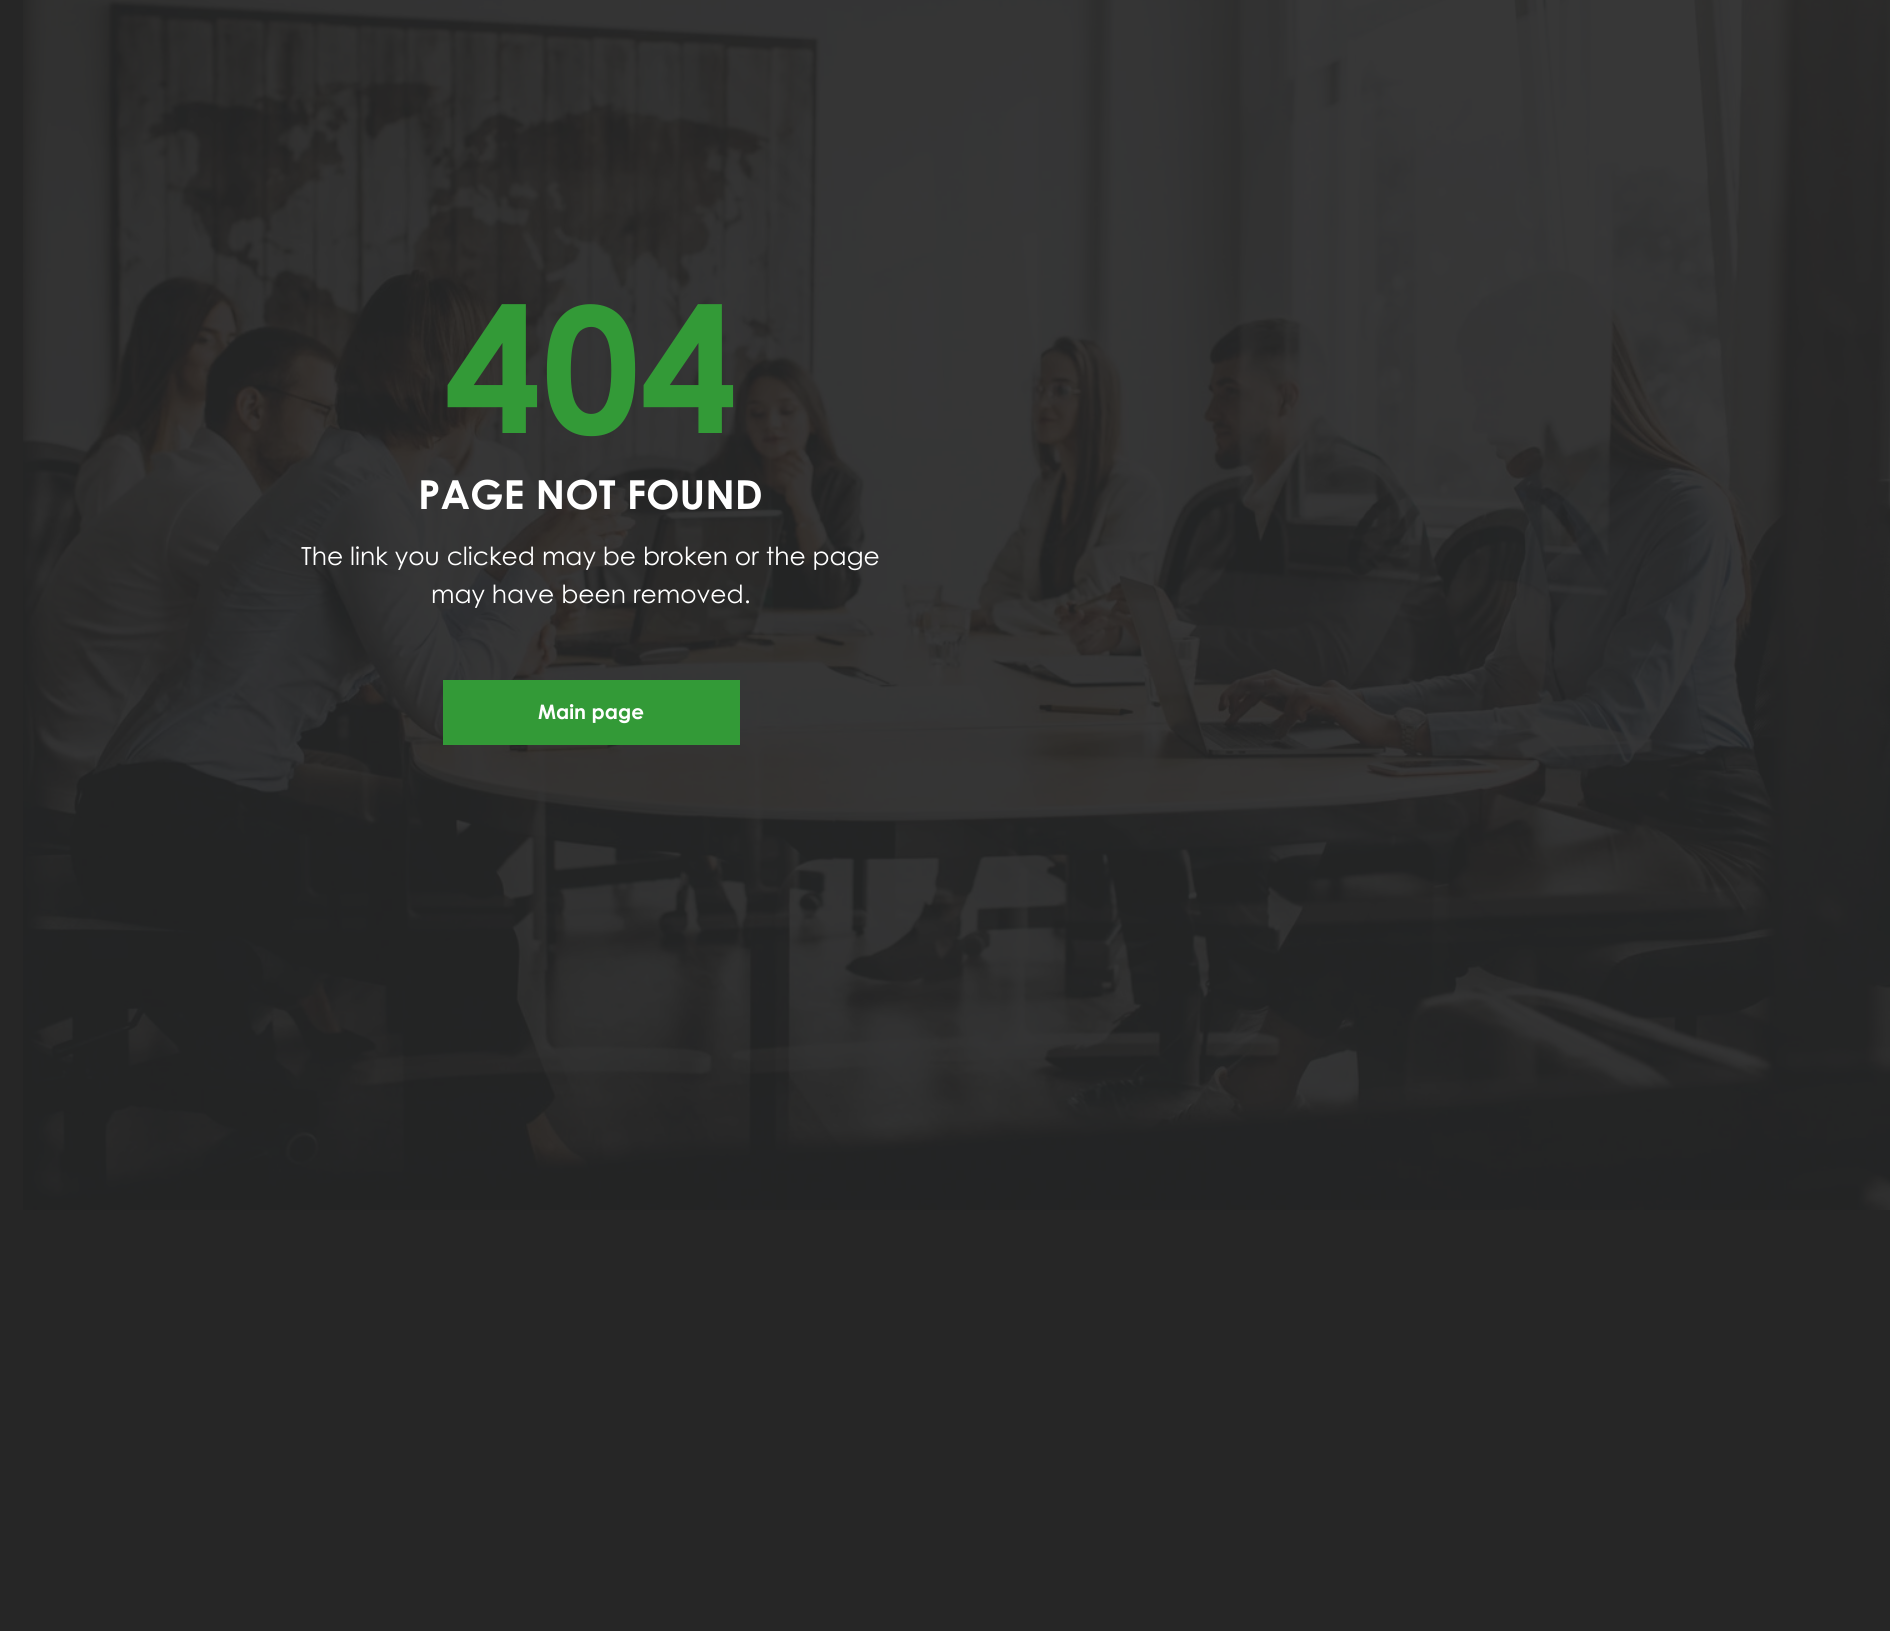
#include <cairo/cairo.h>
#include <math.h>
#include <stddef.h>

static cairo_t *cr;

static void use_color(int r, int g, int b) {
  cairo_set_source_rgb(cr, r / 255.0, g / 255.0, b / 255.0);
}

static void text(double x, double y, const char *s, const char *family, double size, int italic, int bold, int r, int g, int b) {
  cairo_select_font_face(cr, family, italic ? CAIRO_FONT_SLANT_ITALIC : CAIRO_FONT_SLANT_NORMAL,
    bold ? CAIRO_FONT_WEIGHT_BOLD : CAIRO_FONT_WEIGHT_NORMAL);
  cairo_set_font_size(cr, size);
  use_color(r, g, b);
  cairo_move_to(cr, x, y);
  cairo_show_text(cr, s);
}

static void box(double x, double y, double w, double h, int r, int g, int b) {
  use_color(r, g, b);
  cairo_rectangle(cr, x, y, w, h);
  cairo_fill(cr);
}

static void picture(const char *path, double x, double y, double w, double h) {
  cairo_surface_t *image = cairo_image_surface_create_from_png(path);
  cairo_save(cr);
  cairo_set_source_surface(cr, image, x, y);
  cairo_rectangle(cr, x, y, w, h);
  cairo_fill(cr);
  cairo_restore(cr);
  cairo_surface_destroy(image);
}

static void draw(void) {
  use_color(38, 38, 38);
  cairo_paint(cr);
  picture("img_01.png", 23, 0, 1867, 1210);
  box(443, 680, 297, 65, 51, 154, 55);
  text(444, 433, "404", "Century Gothic", 175, 0, 1, 51, 154, 55);
  text(418, 509, "PAGE NOT FOUND", "Century Gothic", 40, 0, 1, 255, 255, 255);
  text(301, 565, "The link you clicked may be broken or the page", "Century Gothic", 25, 0, 0, 255, 255, 255);
  text(431, 603, "may have been removed.", "Century Gothic", 25, 0, 0, 255, 255, 255);
  text(538, 719, "Main page", "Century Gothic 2", 20, 0, 1, 255, 255, 255);
}

int main(void) {
  cairo_surface_t *surface = cairo_image_surface_create(CAIRO_FORMAT_RGB24, 1890, 1631);
  cr = cairo_create(surface);
  cairo_font_options_t *options = cairo_font_options_create();
  cairo_font_options_set_hint_metrics(options, CAIRO_HINT_METRICS_OFF);
  cairo_font_options_set_hint_style(options, CAIRO_HINT_STYLE_NONE);
  cairo_set_font_options(cr, options);
  cairo_set_miter_limit(cr, 4);
  draw();
  cairo_surface_write_to_png(surface, "out.png");
  cairo_font_options_destroy(options);
  cairo_destroy(cr);
  cairo_surface_destroy(surface);
  return 0;
}
